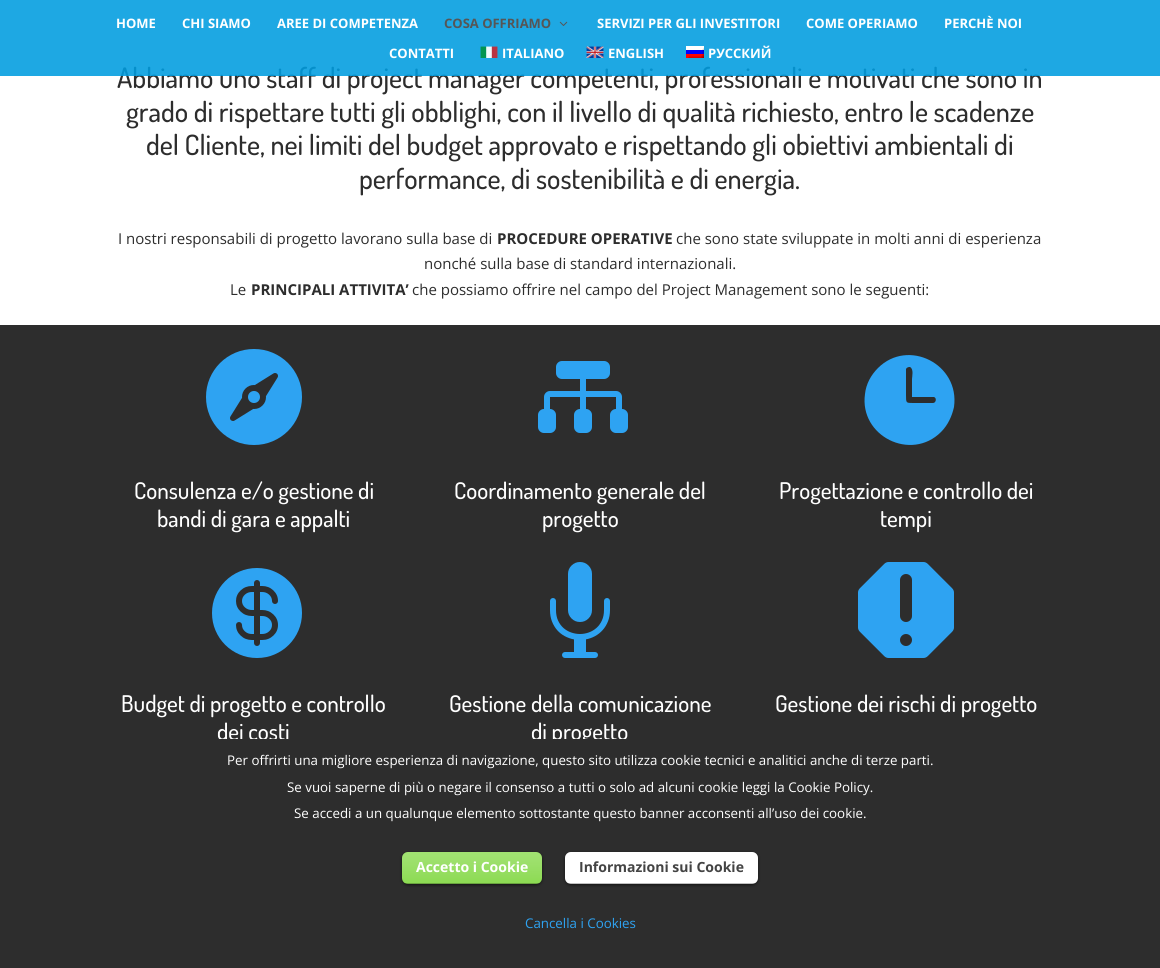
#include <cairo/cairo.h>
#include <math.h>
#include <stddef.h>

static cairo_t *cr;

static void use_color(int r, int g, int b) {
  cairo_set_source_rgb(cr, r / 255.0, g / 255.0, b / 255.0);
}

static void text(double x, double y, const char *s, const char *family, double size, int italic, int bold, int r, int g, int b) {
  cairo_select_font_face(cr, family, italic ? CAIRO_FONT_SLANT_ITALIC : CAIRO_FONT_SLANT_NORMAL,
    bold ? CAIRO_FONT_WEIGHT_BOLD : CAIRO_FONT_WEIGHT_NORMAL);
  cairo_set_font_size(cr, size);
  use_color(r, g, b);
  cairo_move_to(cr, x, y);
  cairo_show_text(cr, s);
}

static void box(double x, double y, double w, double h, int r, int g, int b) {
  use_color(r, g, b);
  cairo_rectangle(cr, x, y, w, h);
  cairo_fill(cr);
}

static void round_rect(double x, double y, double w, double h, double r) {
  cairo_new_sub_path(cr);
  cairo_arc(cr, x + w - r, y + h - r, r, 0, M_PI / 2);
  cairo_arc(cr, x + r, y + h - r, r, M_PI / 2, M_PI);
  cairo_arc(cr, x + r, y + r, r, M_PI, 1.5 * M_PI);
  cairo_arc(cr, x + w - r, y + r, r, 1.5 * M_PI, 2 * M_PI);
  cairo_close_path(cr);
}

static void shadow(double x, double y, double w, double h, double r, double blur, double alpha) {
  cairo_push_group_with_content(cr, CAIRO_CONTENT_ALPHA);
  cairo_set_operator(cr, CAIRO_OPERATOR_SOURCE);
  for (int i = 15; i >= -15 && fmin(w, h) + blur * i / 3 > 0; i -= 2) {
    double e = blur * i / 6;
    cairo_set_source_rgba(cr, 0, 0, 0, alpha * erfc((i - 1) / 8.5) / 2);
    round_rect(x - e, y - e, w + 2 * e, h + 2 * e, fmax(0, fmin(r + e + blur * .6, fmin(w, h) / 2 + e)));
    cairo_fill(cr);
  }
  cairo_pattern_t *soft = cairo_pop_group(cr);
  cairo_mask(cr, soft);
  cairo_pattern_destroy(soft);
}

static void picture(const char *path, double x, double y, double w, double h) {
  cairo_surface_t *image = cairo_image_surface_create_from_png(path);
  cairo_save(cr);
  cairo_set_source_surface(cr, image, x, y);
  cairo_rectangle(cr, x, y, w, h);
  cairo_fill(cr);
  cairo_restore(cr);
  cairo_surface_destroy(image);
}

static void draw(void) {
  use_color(255, 255, 255);
  cairo_paint(cr);
  box(0, 325, 1160, 414, 45, 45, 45);
  picture("img_05.png", 206, 349, 96, 96);
  picture("img_06.png", 212, 568, 90, 90);
  picture("img_07.png", 538, 361, 90, 72);
  picture("img_08.png", 550, 562, 60, 96);
  use_color(46, 163, 242);
  cairo_new_path(cr);
  cairo_move_to(cr, 878, 368);
  cairo_curve_to(cr, 871, 375, 866, 384, 865, 394);
  cairo_curve_to(cr, 859, 436, 911, 462, 941, 432);
  cairo_curve_to(cr, 948, 425, 952, 416, 954, 407);
  cairo_curve_to(cr, 960, 364, 908, 338, 878, 368);
  cairo_close_path(cr);
  cairo_move_to(cr, 933, 403);
  cairo_line_to(cr, 913, 403);
  cairo_curve_to(cr, 906, 403, 906, 403, 906, 395);
  cairo_line_to(cr, 906, 369);
  cairo_curve_to(cr, 907, 367, 909, 367, 910, 367);
  cairo_curve_to(cr, 914, 369, 912, 377, 912, 379);
  cairo_line_to(cr, 912, 397);
  cairo_line_to(cr, 934, 397);
  cairo_curve_to(cr, 937, 398, 936, 403, 933, 403);
  cairo_close_path(cr);
  cairo_fill(cr);
  picture("img_09.png", 858, 562, 96, 96);
  text(117, 88, "Abbiamo uno staff di project manager competenti, professionali e motivati che sono in", "Dosis Medium", 28, 0, 0, 45, 45, 45);
  cairo_set_source_rgba(cr, 0, 0.616, 0.878, 0.88);
  cairo_rectangle(cr, 0, 0, 1160, 76);
  cairo_fill(cr);
  text(708, 58, "РУССКИЙ", "Open Sans", 13, 0, 1, 255, 255, 255);
  picture("img_04.png", 686, 46, 18, 12);
  text(608, 58, "ENGLISH", "Open Sans", 13, 0, 1, 255, 255, 255);
  picture("img_03.png", 586, 46, 18, 12);
  text(502, 58, "ITALIANO", "Open Sans", 13, 0, 1, 255, 255, 255);
  picture("img_02.png", 480, 46, 18, 12);
  text(389, 58, "CONTATTI", "Open Sans", 13, 0, 1, 255, 255, 255);
  text(944, 28, "PERCHÈ NOI", "Open Sans", 13, 0, 1, 255, 255, 255);
  text(806, 28, "COME OPERIAMO", "Open Sans", 13, 0, 1, 255, 255, 255);
  text(597, 28, "SERVIZI PER GLI INVESTITORI", "Open Sans", 13, 0, 1, 255, 255, 255);
  picture("img_01.png", 559, 21, 9, 5);
  text(444, 28, "COSA OFFRIAMO", "Open Sans", 13, 0, 1, 86, 86, 86);
  text(277, 28, "AREE DI COMPETENZA", "Open Sans", 13, 0, 1, 255, 255, 255);
  text(182, 28, "CHI SIAMO", "Open Sans", 13, 0, 1, 255, 255, 255);
  text(116, 28, "HOME", "Open Sans", 13, 0, 1, 255, 255, 255);
  text(126, 122, "grado di rispettare tutti gli obblighi, con il livello di qualità richiesto, entro le scadenze", "Dosis Medium", 28, 0, 0, 45, 45, 45);
  text(146, 155, "del Cliente, nei limiti del budget approvato e rispettando gli obiettivi ambientali di", "Dosis Medium", 28, 0, 0, 45, 45, 45);
  text(359, 189, "performance, di sostenibilità e di energia.", "Dosis Medium", 28, 0, 0, 45, 45, 45);
  text(118, 244, "I nostri responsabili di progetto lavorano sulla base di", "Open Sans", 15, 0, 0, 45, 45, 45);
  text(497, 244, "PROCEDURE OPERATIVE", "Open Sans", 15, 0, 1, 45, 45, 45);
  text(676, 244, "che sono state sviluppate in molti anni di esperienza", "Open Sans", 15, 0, 0, 45, 45, 45);
  text(424, 269, "nonché sulla base di standard internazionali.", "Open Sans", 15, 0, 0, 45, 45, 45);
  text(230, 295, "Le", "Open Sans", 15, 0, 0, 45, 45, 45);
  text(251, 295, "PRINCIPALI ATTIVITA’", "Open Sans", 15, 0, 1, 45, 45, 45);
  text(412, 295, "che possiamo offrire nel campo del Project Management sono le seguenti:", "Open Sans", 15, 0, 0, 45, 45, 45);
  text(134, 499, "Consulenza e/o gestione di", "Dosis Medium", 23, 0, 0, 255, 255, 255);
  text(157, 527, "bandi di gara e appalti", "Dosis Medium", 23, 0, 0, 255, 255, 255);
  text(121, 712, "Budget di progetto e controllo", "Dosis Medium", 23, 0, 0, 255, 255, 255);
  text(217, 740, "dei costi", "Dosis Medium", 23, 0, 0, 255, 255, 255);
  text(454, 499, "Coordinamento generale del", "Dosis Medium", 23, 0, 0, 255, 255, 255);
  text(542, 527, "progetto", "Dosis Medium", 23, 0, 0, 255, 255, 255);
  text(449, 712, "Gestione della comunicazione", "Dosis Medium", 23, 0, 0, 255, 255, 255);
  text(531, 740, "di progetto", "Dosis Medium", 23, 0, 0, 255, 255, 255);
  text(779, 499, "Progettazione e controllo dei", "Dosis Medium", 23, 0, 0, 255, 255, 255);
  text(880, 527, "tempi", "Dosis Medium", 23, 0, 0, 255, 255, 255);
  text(775, 712, "Gestione dei rischi di progetto", "Dosis Medium", 23, 0, 0, 255, 255, 255);
  box(0, 739, 1160, 229, 45, 45, 45);
  text(227, 765, "Per offrirti una migliore esperienza di navigazione, questo sito utilizza cookie tecnici e analitici anche di terze parti.", "Open Sans", 13.33, 0, 0, 255, 255, 255);
  text(287, 792, "Se vuoi saperne di più o negare il consenso a tutti o solo ad alcuni cookie leggi la Cookie Policy.", "Open Sans", 13.33, 0, 0, 255, 255, 255);
  text(294, 818, "Se accedi a un qualunque elemento sottostante questo banner acconsenti all’uso dei cookie.", "Open Sans", 13.33, 0, 0, 255, 255, 255);
  use_color(0, 0, 0);
  shadow(402, 853, 140, 32, 6, 1.5, 0.6);
  use_color(129, 215, 66);
  round_rect(402, 852, 140, 32, 6);
  cairo_fill(cr);
  picture("img_10.png", 402, 852, 140, 32);
  cairo_set_source_rgba(cr, 0, 0, 0, 0.25);
  cairo_rectangle(cr, 405, 883, 134, 1);
  cairo_fill(cr);
  text(416, 872, "Accetto i Cookie", "Open Sans", 14, 0, 1, 255, 255, 255);
  use_color(0, 0, 0);
  shadow(565, 853, 193, 32, 6, 1.5, 0.6);
  use_color(255, 255, 255);
  round_rect(565, 852, 193, 32, 6);
  cairo_fill(cr);
  picture("img_11.png", 565, 852, 193, 5);
  cairo_set_source_rgba(cr, 0, 0, 0, 0.25);
  cairo_rectangle(cr, 568, 883, 187, 1);
  cairo_fill(cr);
  text(579, 872, "Informazioni sui Cookie", "Open Sans", 14, 0, 1, 68, 68, 68);
  text(525, 928, "Cancella i Cookies", "Open Sans", 13.33, 0, 0, 46, 163, 242);
}

int main(void) {
  cairo_surface_t *surface = cairo_image_surface_create(CAIRO_FORMAT_RGB24, 1160, 968);
  cr = cairo_create(surface);
  cairo_font_options_t *options = cairo_font_options_create();
  cairo_font_options_set_hint_metrics(options, CAIRO_HINT_METRICS_OFF);
  cairo_font_options_set_hint_style(options, CAIRO_HINT_STYLE_NONE);
  cairo_set_font_options(cr, options);
  cairo_set_miter_limit(cr, 4);
  draw();
  cairo_surface_write_to_png(surface, "out.png");
  cairo_font_options_destroy(options);
  cairo_destroy(cr);
  cairo_surface_destroy(surface);
  return 0;
}
